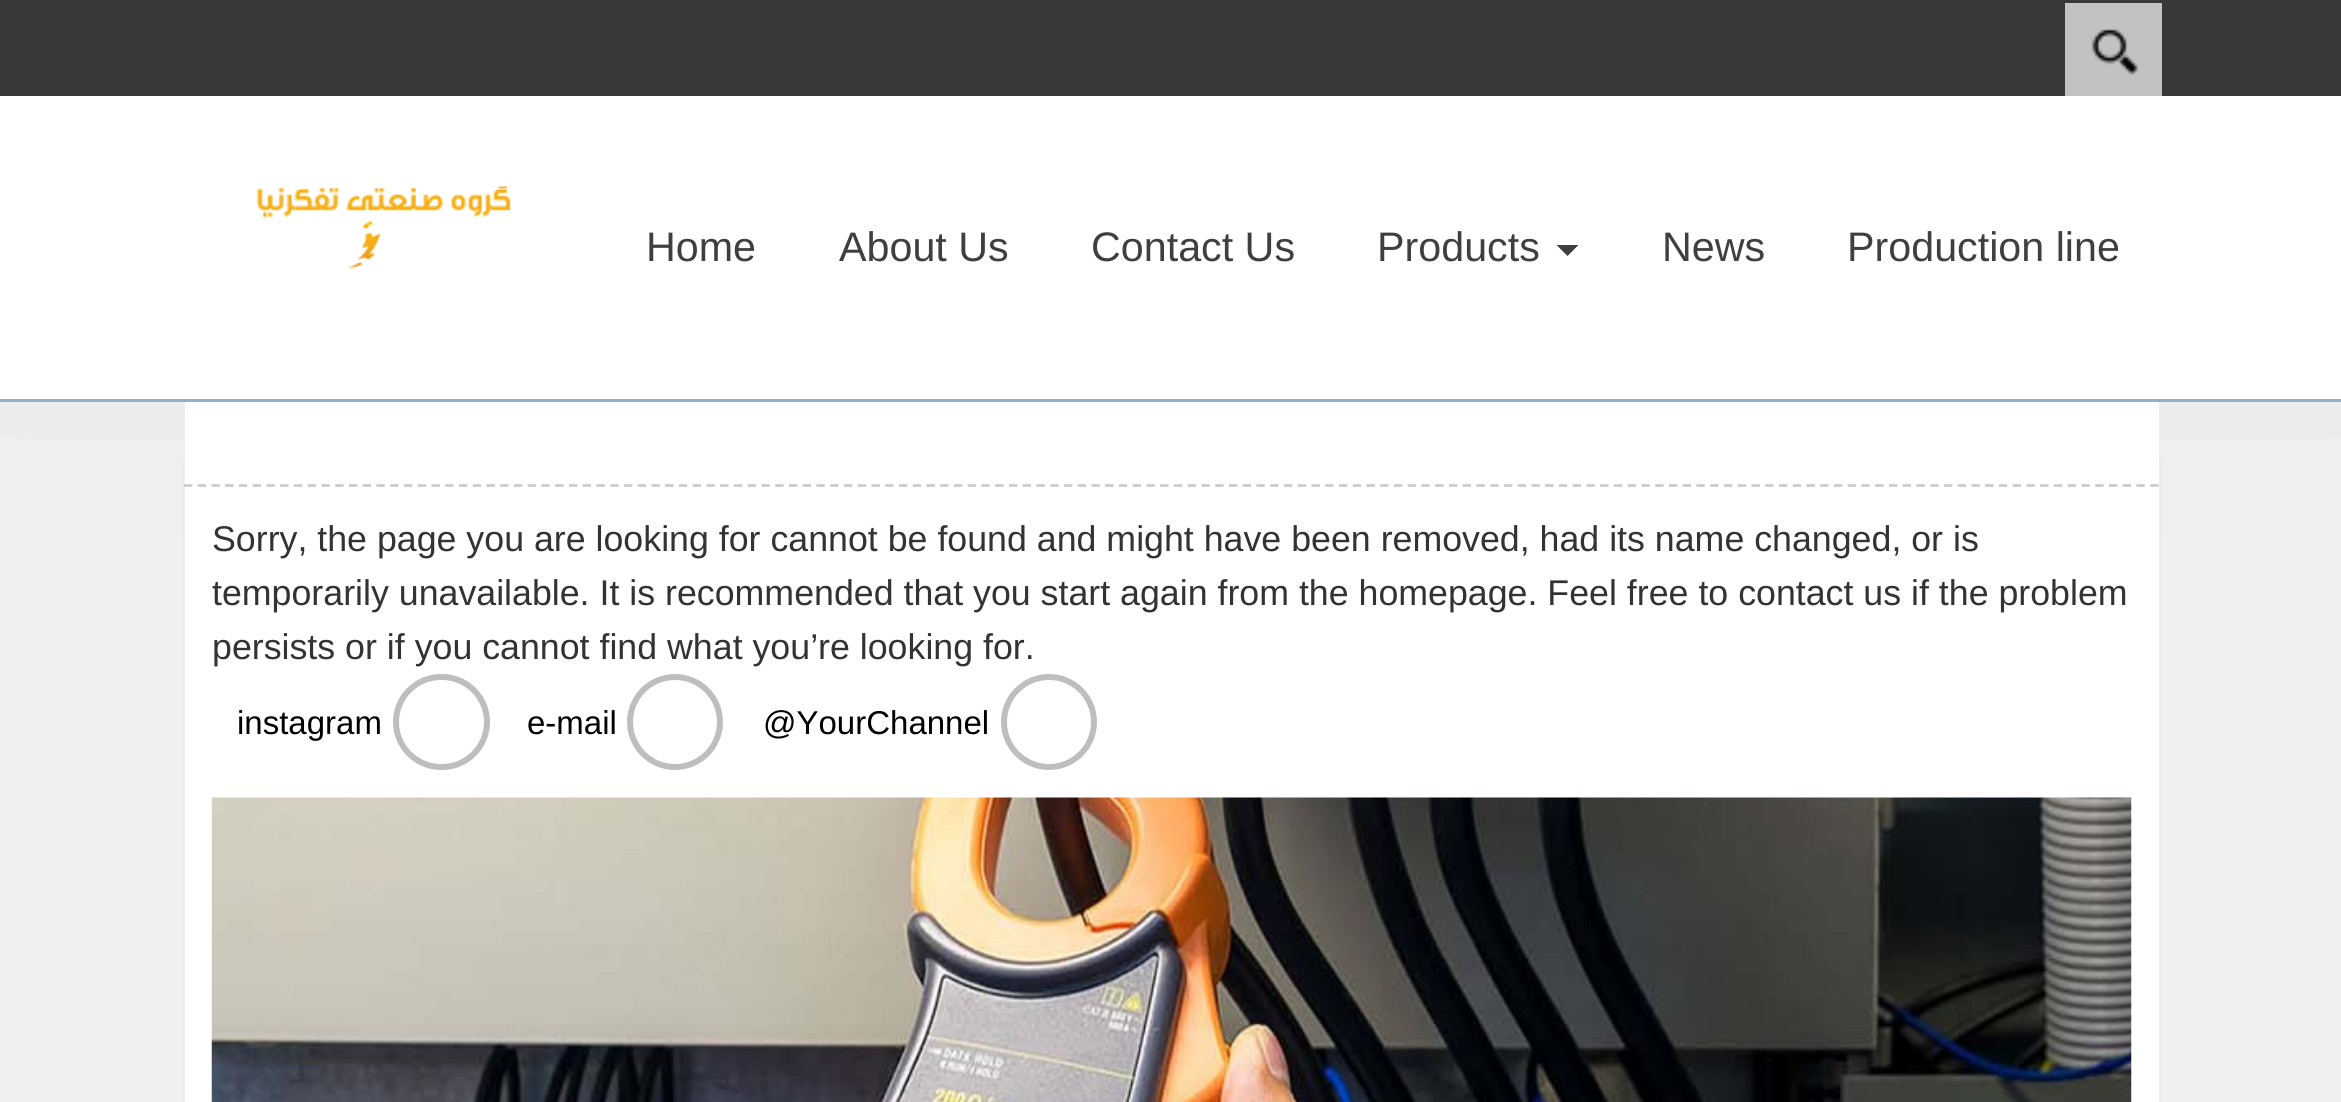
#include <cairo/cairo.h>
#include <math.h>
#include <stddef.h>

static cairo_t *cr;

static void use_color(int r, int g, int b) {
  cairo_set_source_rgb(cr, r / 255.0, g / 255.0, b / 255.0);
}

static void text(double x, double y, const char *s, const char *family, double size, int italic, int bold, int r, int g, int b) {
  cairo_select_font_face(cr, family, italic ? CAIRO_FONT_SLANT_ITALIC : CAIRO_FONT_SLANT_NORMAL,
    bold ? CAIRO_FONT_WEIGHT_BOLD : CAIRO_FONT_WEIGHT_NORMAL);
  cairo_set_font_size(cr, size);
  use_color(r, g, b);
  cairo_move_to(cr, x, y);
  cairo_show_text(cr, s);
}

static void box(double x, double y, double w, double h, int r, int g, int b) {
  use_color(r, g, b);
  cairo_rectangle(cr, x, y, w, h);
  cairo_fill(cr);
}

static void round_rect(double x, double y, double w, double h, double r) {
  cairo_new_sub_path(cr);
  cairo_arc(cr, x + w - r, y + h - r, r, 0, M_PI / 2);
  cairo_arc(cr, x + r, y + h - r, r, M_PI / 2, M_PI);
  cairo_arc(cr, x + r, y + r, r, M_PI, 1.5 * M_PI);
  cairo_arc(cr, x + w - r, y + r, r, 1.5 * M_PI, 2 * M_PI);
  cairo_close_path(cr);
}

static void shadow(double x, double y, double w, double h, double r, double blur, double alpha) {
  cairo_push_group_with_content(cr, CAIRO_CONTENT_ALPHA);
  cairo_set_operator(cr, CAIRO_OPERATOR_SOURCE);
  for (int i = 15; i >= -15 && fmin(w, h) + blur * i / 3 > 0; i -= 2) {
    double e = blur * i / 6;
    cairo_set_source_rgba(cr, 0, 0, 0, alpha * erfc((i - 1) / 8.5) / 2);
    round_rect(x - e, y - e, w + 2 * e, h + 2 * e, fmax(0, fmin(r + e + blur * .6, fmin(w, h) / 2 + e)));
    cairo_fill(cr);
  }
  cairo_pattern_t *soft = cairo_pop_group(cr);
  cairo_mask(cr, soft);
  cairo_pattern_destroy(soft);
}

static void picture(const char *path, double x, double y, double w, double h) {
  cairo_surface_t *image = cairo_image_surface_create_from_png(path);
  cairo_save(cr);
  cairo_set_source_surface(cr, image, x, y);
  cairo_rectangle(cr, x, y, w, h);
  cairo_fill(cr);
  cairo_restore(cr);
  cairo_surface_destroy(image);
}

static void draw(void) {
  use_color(240, 240, 240);
  cairo_paint(cr);
  use_color(202, 202, 202);
  shadow(3, 138, 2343, 96, 0, 137.5, 1);
  box(0, 0, 2341, 96, 56, 56, 56);
  box(2065, 3, 97, 93, 195, 193, 193);
  picture("img_01.png", 2092, 29, 46, 46);
  box(0, 96, 2341, 303, 255, 255, 255);
  box(0, 399, 2341, 3, 145, 175, 202);
  picture("img_02.png", 256, 186, 255, 84);
  use_color(63, 63, 63);
  cairo_new_path(cr);
  cairo_move_to(cr, 1556.5, 245);
  cairo_line_to(cr, 1578.5, 245);
  cairo_line_to(cr, 1567.5, 256);
  cairo_close_path(cr);
  cairo_fill(cr);
  box(185, 402, 1974, 700, 255, 255, 255);
  box(2159, 458, 3, 644, 236, 236, 236);
  box(182, 462, 3, 640, 236, 236, 236);
  cairo_new_path(cr);
  cairo_move_to(cr, 184, 485.5);
  cairo_line_to(cr, 2159, 485.5);
  use_color(204, 204, 204);
  cairo_set_line_width(cr, 2.8);
  cairo_set_dash(cr, (double[]){8.25, 5.5}, 2, 0);
  cairo_stroke(cr);
  round_rect(396, 677, 91, 90, 45);
  use_color(190, 190, 190);
  cairo_set_line_width(cr, 6);
  cairo_set_dash(cr, NULL, 0, 0);
  cairo_stroke(cr);
  cairo_arc(cr, 675, 722, 45, 0, 2 * M_PI);
  cairo_stroke(cr);
  cairo_arc(cr, 1049, 722, 45, 0, 2 * M_PI);
  cairo_stroke(cr);
  picture("img_03.png", 211, 797, 1921, 305);
  text(646, 261, "Home", "Liberation Sans", 41.25, 0, 0, 63, 63, 63);
  text(839, 261, "About Us", "Liberation Sans", 41.25, 0, 0, 63, 63, 63);
  text(1091, 261, "Contact Us", "Liberation Sans", 41.25, 0, 0, 63, 63, 63);
  text(1377, 261, "Products", "Liberation Sans", 41.25, 0, 0, 63, 63, 63);
  text(1662, 261, "News", "Liberation Sans", 41.25, 0, 0, 63, 63, 63);
  text(1847, 261, "Production line", "Liberation Sans", 41.25, 0, 0, 63, 63, 63);
  text(212, 551, "Sorry, the page you are looking for cannot be found and might have been removed, had its name changed, or is", "Liberation Sans", 35.75, 0, 0, 51, 51, 51);
  text(212, 605, "temporarily unavailable. It is recommended that you start again from the homepage. Feel free to contact us if the problem", "Liberation Sans", 35.75, 0, 0, 51, 51, 51);
  text(212, 659, "persists or if you cannot find what you’re looking for.", "Liberation Sans", 35.75, 0, 0, 51, 51, 51);
  text(237, 734, "instagram", "Liberation Sans", 33, 0, 0, 0, 0, 0);
  text(527, 734, "e-mail", "Liberation Sans", 33, 0, 0, 0, 0, 0);
  text(763, 734, "@YourChannel", "Liberation Sans", 33, 0, 0, 0, 0, 0);
}

int main(void) {
  cairo_surface_t *surface = cairo_image_surface_create(CAIRO_FORMAT_RGB24, 2341, 1102);
  cr = cairo_create(surface);
  cairo_font_options_t *options = cairo_font_options_create();
  cairo_font_options_set_hint_metrics(options, CAIRO_HINT_METRICS_OFF);
  cairo_font_options_set_hint_style(options, CAIRO_HINT_STYLE_NONE);
  cairo_set_font_options(cr, options);
  cairo_set_miter_limit(cr, 4);
  draw();
  cairo_surface_write_to_png(surface, "out.png");
  cairo_font_options_destroy(options);
  cairo_destroy(cr);
  cairo_surface_destroy(surface);
  return 0;
}
